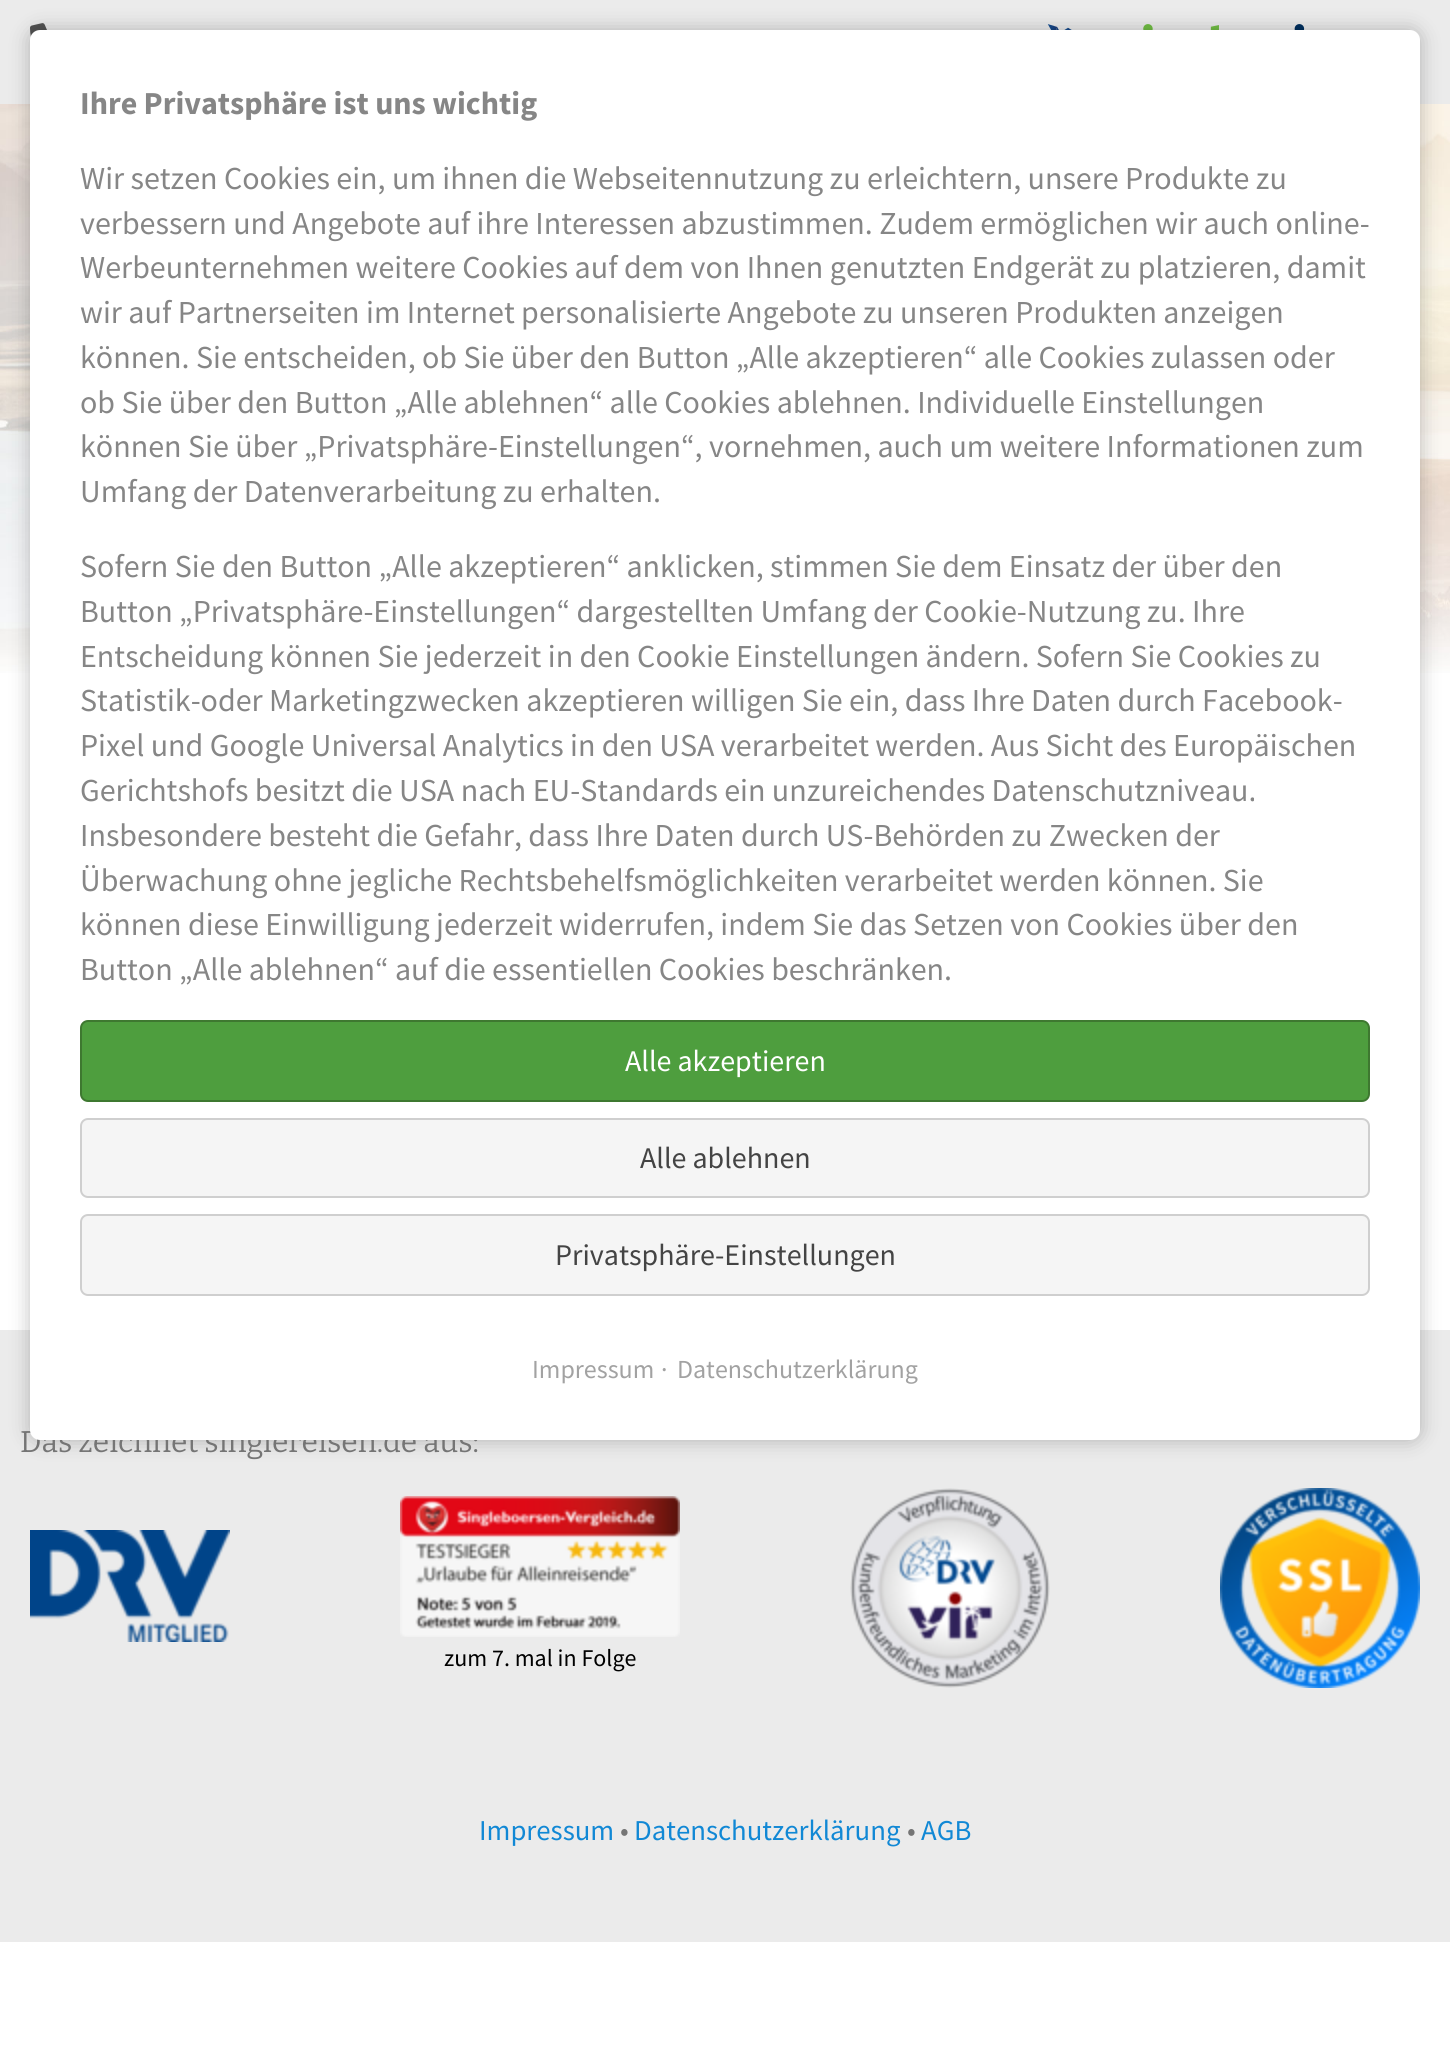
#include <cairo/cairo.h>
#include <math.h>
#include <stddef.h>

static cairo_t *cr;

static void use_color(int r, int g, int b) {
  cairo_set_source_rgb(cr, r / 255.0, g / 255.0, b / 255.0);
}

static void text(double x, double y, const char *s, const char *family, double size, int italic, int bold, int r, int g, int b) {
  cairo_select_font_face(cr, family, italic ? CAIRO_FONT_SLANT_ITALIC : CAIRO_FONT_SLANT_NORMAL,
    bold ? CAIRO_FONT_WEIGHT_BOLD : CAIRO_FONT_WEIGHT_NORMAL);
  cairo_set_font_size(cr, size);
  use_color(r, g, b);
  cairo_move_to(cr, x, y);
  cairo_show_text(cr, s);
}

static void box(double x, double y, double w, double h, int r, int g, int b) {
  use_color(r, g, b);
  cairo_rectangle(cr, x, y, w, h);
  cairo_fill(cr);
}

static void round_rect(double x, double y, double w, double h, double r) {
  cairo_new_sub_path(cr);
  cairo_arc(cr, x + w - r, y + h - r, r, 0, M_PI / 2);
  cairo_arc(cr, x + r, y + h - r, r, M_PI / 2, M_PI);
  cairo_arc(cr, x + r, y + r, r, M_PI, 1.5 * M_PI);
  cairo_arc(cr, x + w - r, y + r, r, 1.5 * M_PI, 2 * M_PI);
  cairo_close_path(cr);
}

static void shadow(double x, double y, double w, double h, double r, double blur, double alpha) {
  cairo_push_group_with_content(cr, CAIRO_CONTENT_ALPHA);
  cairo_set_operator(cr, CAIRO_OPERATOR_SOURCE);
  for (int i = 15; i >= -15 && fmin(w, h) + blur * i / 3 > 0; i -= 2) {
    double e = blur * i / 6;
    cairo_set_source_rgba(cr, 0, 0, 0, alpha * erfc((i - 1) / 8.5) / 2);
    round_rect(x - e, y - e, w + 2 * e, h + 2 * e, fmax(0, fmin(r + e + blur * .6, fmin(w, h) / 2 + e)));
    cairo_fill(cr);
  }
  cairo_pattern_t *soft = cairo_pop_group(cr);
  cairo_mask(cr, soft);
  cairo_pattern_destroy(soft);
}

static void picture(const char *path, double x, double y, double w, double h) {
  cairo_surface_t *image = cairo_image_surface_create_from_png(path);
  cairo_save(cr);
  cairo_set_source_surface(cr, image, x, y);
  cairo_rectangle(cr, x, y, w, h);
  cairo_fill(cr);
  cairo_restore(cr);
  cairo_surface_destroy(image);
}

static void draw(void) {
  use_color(255, 255, 255);
  cairo_paint(cr);
  picture("img_01.png", 0, 104, 1450, 569);
  box(0, 0, 1450, 104, 235, 235, 235);
  picture("img_02.png", 30, 23, 17, 14);
  picture("img_03.png", 1047, 24, 258, 6);
  box(0, 1330, 1450, 612, 235, 235, 235);
  use_color(0, 0, 0);
  shadow(30, 30, 1390, 1410, 10, 10, 0.25);
  picture("img_04.png", 30, 1530, 200, 112);
  picture("img_05.png", 850, 1488, 200, 200);
  picture("img_06.png", 1220, 1488, 200, 200);
  picture("img_07.png", 400, 1496, 280, 141);
  text(20, 1452, "Das zeichnet singlereisen.de aus:", "Bitter Thin", 30, 0, 0, 117, 117, 117);
  use_color(255, 255, 255);
  round_rect(30, 30, 1390, 1410, 10);
  cairo_fill(cr);
  text(677, 1378, "Datenschutzerklärung", "Source Sans Pro", 26, 0, 0, 162, 162, 162);
  text(661, 1378, "·", "Source Sans Pro", 26, 0, 0, 162, 162, 162);
  text(532, 1378, "Impressum", "Source Sans Pro", 26, 0, 0, 162, 162, 162);
  use_color(245, 245, 245);
  round_rect(81, 1215, 1288, 80, 7);
  cairo_fill_preserve(cr);
  use_color(207, 207, 207);
  cairo_stroke(cr);
  text(555, 1265, "Privatsphäre-Einstellungen", "Source Sans Pro", 30, 0, 0, 68, 68, 68);
  use_color(245, 245, 245);
  round_rect(81, 1119, 1288, 78, 7);
  cairo_fill_preserve(cr);
  use_color(207, 207, 207);
  cairo_stroke(cr);
  text(640, 1168, "Alle ablehnen", "Source Sans Pro", 30, 0, 0, 68, 68, 68);
  use_color(78, 158, 62);
  round_rect(81, 1021, 1288, 80, 7);
  cairo_fill_preserve(cr);
  use_color(62, 120, 48);
  cairo_stroke(cr);
  text(625, 1071, "Alle akzeptieren", "Source Sans Pro", 30, 0, 0, 255, 255, 255);
  text(80, 980, "Button „Alle ablehnen“ auf die essentiellen Cookies beschränken.", "Source Sans Pro", 32, 0, 0, 134, 134, 134);
  text(80, 935, "können diese Einwilligung jederzeit widerrufen, indem Sie das Setzen von Cookies über den", "Source Sans Pro", 32, 0, 0, 134, 134, 134);
  text(80, 891, "Überwachung ohne jegliche Rechtsbehelfsmöglichkeiten verarbeitet werden können. Sie", "Source Sans Pro", 32, 0, 0, 134, 134, 134);
  text(80, 846, "Insbesondere besteht die Gefahr, dass Ihre Daten durch US-Behörden zu Zwecken der", "Source Sans Pro", 32, 0, 0, 134, 134, 134);
  text(80, 801, "Gerichtshofs besitzt die USA nach EU-Standards ein unzureichendes Datenschutzniveau.", "Source Sans Pro", 32, 0, 0, 134, 134, 134);
  text(80, 756, "Pixel und Google Universal Analytics in den USA verarbeitet werden. Aus Sicht des Europäischen", "Source Sans Pro", 32, 0, 0, 134, 134, 134);
  text(80, 711, "Statistik-oder Marketingzwecken akzeptieren willigen Sie ein, dass Ihre Daten durch Facebook-", "Source Sans Pro", 32, 0, 0, 134, 134, 134);
  text(80, 667, "Entscheidung können Sie jederzeit in den Cookie Einstellungen ändern. Sofern Sie Cookies zu", "Source Sans Pro", 32, 0, 0, 134, 134, 134);
  text(80, 622, "Button „Privatsphäre-Einstellungen“ dargestellten Umfang der Cookie-Nutzung zu. Ihre", "Source Sans Pro", 32, 0, 0, 134, 134, 134);
  text(80, 577, "Sofern Sie den Button „Alle akzeptieren“ anklicken, stimmen Sie dem Einsatz der über den", "Source Sans Pro", 32, 0, 0, 134, 134, 134);
  text(80, 502, "Umfang der Datenverarbeitung zu erhalten.", "Source Sans Pro", 32, 0, 0, 134, 134, 134);
  text(80, 457, "können Sie über „Privatsphäre-Einstellungen“, vornehmen, auch um weitere Informationen zum", "Source Sans Pro", 32, 0, 0, 134, 134, 134);
  text(80, 413, "ob Sie über den Button „Alle ablehnen“ alle Cookies ablehnen. Individuelle Einstellungen", "Source Sans Pro", 32, 0, 0, 134, 134, 134);
  text(80, 368, "können. Sie entscheiden, ob Sie über den Button „Alle akzeptieren“ alle Cookies zulassen oder", "Source Sans Pro", 32, 0, 0, 134, 134, 134);
  text(80, 323, "wir auf Partnerseiten im Internet personalisierte Angebote zu unseren Produkten anzeigen", "Source Sans Pro", 32, 0, 0, 134, 134, 134);
  text(80, 278, "Werbeunternehmen weitere Cookies auf dem von Ihnen genutzten Endgerät zu platzieren, damit", "Source Sans Pro", 32, 0, 0, 134, 134, 134);
  text(80, 234, "verbessern und Angebote auf ihre Interessen abzustimmen. Zudem ermöglichen wir auch online-", "Source Sans Pro", 32, 0, 0, 134, 134, 134);
  text(80, 189, "Wir setzen Cookies ein, um ihnen die Webseitennutzung zu erleichtern, unsere Produkte zu", "Source Sans Pro", 32, 0, 0, 134, 134, 134);
  text(80, 114, "Ihre Privatsphäre ist uns wichtig", "Source Sans Pro", 32, 0, 1, 134, 134, 134);
  text(444, 1666, "zum 7. mal in Folge", "Source Sans Pro", 24, 0, 0, 0, 0, 0);
  text(479, 1840, "Impressum", "Source Sans Pro", 28.75, 0, 0, 17, 136, 213);
  text(620, 1840, "•", "Source Sans Pro", 28.75, 0, 0, 117, 117, 117);
  text(634, 1840, "Datenschutzerklärung", "Source Sans Pro", 28.75, 0, 0, 17, 136, 213);
  text(907, 1840, "•", "Source Sans Pro", 28.75, 0, 0, 117, 117, 117);
  text(921, 1840, "AGB", "Source Sans Pro", 28.75, 0, 0, 17, 136, 213);
}

int main(void) {
  cairo_surface_t *surface = cairo_image_surface_create(CAIRO_FORMAT_RGB24, 1450, 2063);
  cr = cairo_create(surface);
  cairo_font_options_t *options = cairo_font_options_create();
  cairo_font_options_set_hint_metrics(options, CAIRO_HINT_METRICS_OFF);
  cairo_font_options_set_hint_style(options, CAIRO_HINT_STYLE_NONE);
  cairo_set_font_options(cr, options);
  cairo_set_miter_limit(cr, 4);
  draw();
  cairo_surface_write_to_png(surface, "out.png");
  cairo_font_options_destroy(options);
  cairo_destroy(cr);
  cairo_surface_destroy(surface);
  return 0;
}
